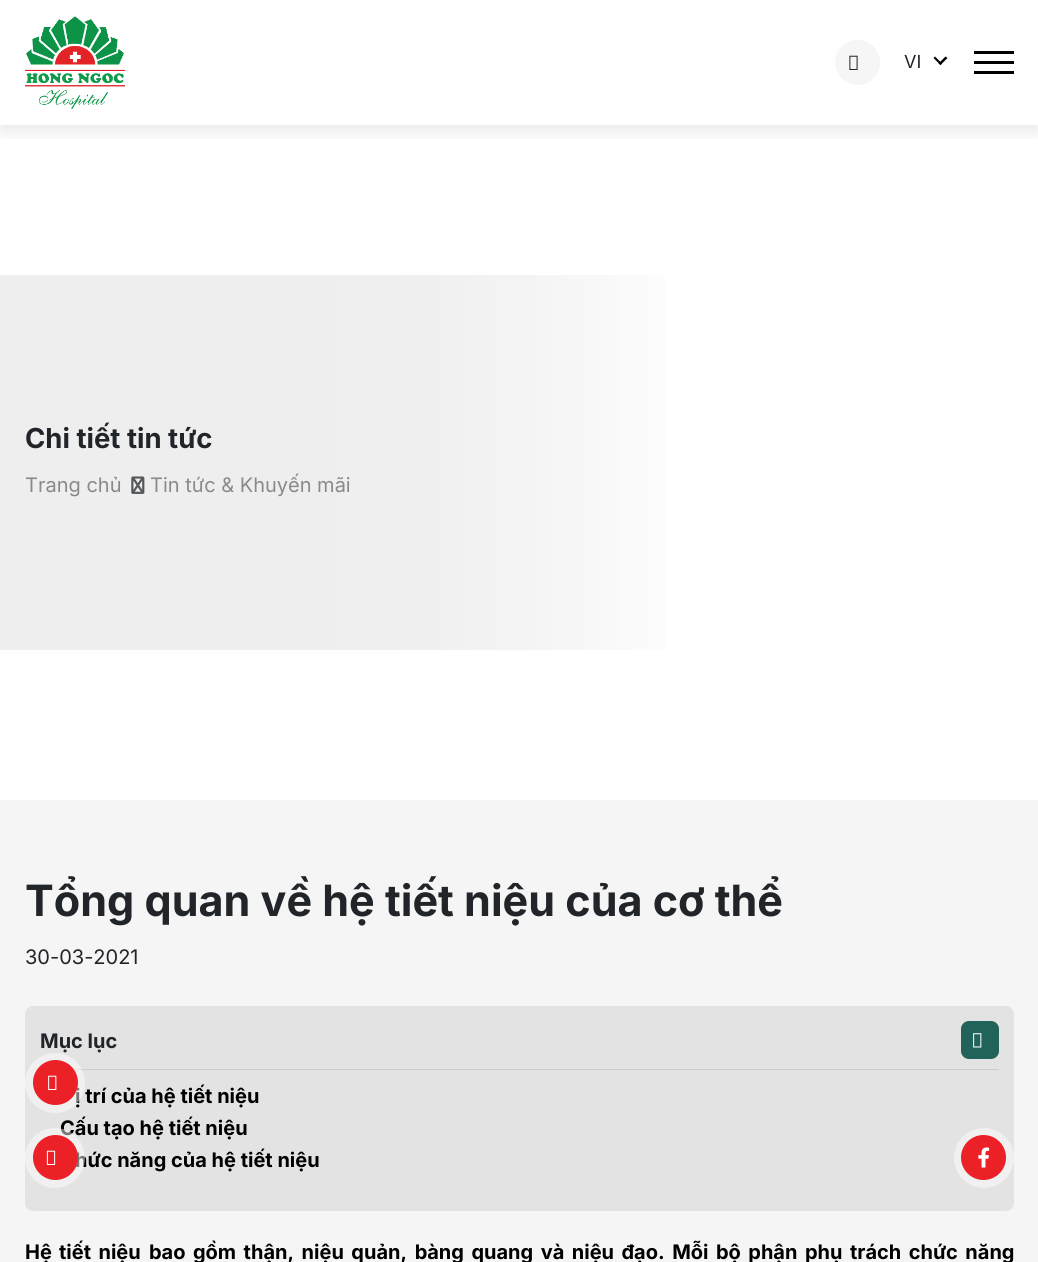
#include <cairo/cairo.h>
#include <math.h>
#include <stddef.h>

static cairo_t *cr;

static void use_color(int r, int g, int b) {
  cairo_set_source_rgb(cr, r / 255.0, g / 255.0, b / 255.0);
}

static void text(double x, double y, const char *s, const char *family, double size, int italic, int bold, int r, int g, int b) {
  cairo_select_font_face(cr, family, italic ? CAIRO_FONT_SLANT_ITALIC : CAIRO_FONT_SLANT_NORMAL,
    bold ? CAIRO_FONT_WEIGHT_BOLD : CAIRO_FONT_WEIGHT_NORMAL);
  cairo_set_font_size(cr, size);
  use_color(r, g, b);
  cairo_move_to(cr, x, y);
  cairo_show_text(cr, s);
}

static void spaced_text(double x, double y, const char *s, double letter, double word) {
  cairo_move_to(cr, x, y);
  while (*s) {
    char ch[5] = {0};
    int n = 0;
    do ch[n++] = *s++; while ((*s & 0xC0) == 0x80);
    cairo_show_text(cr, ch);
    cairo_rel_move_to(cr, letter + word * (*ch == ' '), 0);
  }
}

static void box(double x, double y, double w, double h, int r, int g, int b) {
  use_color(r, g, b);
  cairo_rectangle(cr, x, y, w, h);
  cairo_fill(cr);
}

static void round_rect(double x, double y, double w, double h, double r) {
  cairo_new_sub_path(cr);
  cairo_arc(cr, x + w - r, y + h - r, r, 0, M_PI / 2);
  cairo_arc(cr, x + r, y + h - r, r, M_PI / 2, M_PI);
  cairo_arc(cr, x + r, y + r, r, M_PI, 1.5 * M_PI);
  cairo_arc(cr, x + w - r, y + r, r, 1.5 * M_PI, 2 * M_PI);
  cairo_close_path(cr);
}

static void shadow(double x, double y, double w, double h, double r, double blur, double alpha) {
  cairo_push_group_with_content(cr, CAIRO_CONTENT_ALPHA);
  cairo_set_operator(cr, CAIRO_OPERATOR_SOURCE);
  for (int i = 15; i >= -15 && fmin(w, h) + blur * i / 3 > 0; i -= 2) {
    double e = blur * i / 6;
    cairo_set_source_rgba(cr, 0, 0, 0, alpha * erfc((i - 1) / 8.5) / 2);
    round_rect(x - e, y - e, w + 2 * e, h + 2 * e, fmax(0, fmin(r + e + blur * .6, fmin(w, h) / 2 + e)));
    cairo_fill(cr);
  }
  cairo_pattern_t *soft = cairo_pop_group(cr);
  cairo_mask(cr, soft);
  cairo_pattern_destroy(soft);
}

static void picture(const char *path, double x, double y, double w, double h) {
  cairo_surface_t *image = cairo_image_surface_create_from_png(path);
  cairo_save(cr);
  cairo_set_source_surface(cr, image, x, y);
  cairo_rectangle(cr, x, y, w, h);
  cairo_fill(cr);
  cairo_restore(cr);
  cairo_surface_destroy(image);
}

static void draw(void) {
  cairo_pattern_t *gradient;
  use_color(255, 255, 255);
  cairo_paint(cr);
  cairo_save(cr);
  cairo_rectangle(cr, 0, 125, 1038, 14);
  cairo_clip(cr);
  use_color(0, 0, 0);
  shadow(0, 5, 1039, 125, 0, 11, 0.1);
  cairo_restore(cr);
  picture("img_01.png", 25, 16, 100, 93);
  use_color(246, 246, 246);
  cairo_arc(cr, 857.5, 62.5, 22.5, 0, 2 * M_PI);
  cairo_fill(cr);
  picture("img_02.png", 849, 55, 9, 15);
  use_color(0, 0, 0);
  cairo_new_path(cr);
  cairo_move_to(cr, 945.5, 56.5);
  cairo_line_to(cr, 947.5, 58);
  cairo_line_to(cr, 940.5, 65);
  cairo_line_to(cr, 938.5, 63.5);
  cairo_close_path(cr);
  cairo_fill(cr);
  cairo_new_path(cr);
  cairo_move_to(cr, 935, 56.5);
  cairo_line_to(cr, 942, 63.5);
  cairo_line_to(cr, 940.5, 65);
  cairo_line_to(cr, 933.5, 58);
  cairo_close_path(cr);
  cairo_fill(cr);
  box(974, 51, 40, 3, 0, 0, 0);
  box(974, 61, 40, 3, 0, 0, 0);
  box(974, 71, 40, 3, 0, 0, 0);
  gradient = cairo_pattern_create_linear(-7.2, 463, 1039, 463);
  cairo_pattern_add_color_stop_rgba(gradient, 0, 0.933, 0.933, 0.933, 1);
  cairo_pattern_add_color_stop_rgba(gradient, 0.29, 0.933, 0.933, 0.933, 1);
  cairo_pattern_add_color_stop_rgba(gradient, 0.42, 0.941, 0.941, 0.941, 1);
  cairo_pattern_add_color_stop_rgba(gradient, 0.53, 0.961, 0.961, 0.961, 1);
  cairo_pattern_add_color_stop_rgba(gradient, 0.68, 1, 1, 1, 1);
  cairo_set_source(cr, gradient);
  cairo_pattern_destroy(gradient);
  cairo_rectangle(cr, 0, 275, 665, 375);
  cairo_fill(cr);
  picture("img_03.png", 131, 476, 14, 18);
  box(0, 800, 1038, 462, 245, 245, 245);
  use_color(228, 227, 227);
  round_rect(25, 1006, 989, 205, 8);
  cairo_fill(cr);
  box(73, 1069, 926, 1, 204, 204, 204);
  use_color(33, 99, 88);
  round_rect(961, 1021, 38, 38, 8);
  cairo_fill(cr);
  picture("img_04.png", 973, 1033, 9, 15);
  cairo_arc(cr, 984, 1158, 26, 0, 2 * M_PI);
  use_color(241, 240, 240);
  cairo_set_line_width(cr, 8);
  cairo_stroke(cr);
  use_color(236, 32, 39);
  cairo_arc(cr, 983.5, 1157.5, 22.5, 0, 2 * M_PI);
  cairo_fill(cr);
  picture("img_07.png", 978, 1147, 12, 21);
  text(904, 68, "VI", "Inter", 18, 0, 0, 33, 37, 41);
  text(25, 448, "Chi tiết tin tức", "Inter", 27.5, 0, 1, 33, 37, 41);
  text(25, 492, "Trang chủ", "Inter", 20, 0, 0, 138, 138, 138);
  text(150, 492, "Tin tức & Khuyến mãi", "Inter", 20, 0, 0, 138, 138, 138);
  text(25, 916, "Tổng quan về hệ tiết niệu của cơ thể", "Inter", 43.1, 0, 1, 33, 37, 41);
  text(25, 964, "30-03-2021", "Inter", 20, 0, 0, 33, 37, 41);
  text(40, 1048, "Mục lục", "Inter", 20, 0, 1, 33, 37, 41);
  text(75, 1103, "ị trí của hệ tiết niệu", "Inter", 20, 0, 1, 0, 0, 0);
  text(60, 1135, "Cấu tạo hệ tiết niệu", "Inter", 20, 0, 1, 0, 0, 0);
  text(75, 1167, "hức năng của hệ tiết niệu", "Inter", 20, 0, 1, 0, 0, 0);
  text(25, 1259, "Hệ", "Inter", 20, 0, 1, 0, 0, 0);
  spaced_text(59, 1259, "tiết niệu", 0, 2.75);
  spaced_text(149, 1259, "bao gồm thận, niệu quản, bàng quang và niệu đạo. Mỗi bộ phận phụ trách chức năng", 0, 2.75);
  cairo_new_path(cr);
  cairo_arc(cr, 55, 1083, 26, 0, 2 * M_PI);
  cairo_set_source_rgba(cr, 1, 1, 1, 0.47);
  cairo_stroke(cr);
  use_color(236, 32, 39);
  cairo_arc(cr, 55.5, 1082.5, 22.5, 0, 2 * M_PI);
  cairo_fill(cr);
  picture("img_05.png", 48, 1075, 9, 15);
  cairo_arc(cr, 55, 1158, 26, 0, 2 * M_PI);
  cairo_set_source_rgba(cr, 1, 1, 1, 0.47);
  cairo_stroke(cr);
  use_color(236, 32, 39);
  cairo_arc(cr, 55.5, 1157.5, 22.5, 0, 2 * M_PI);
  cairo_fill(cr);
  picture("img_06.png", 46, 1150, 10, 15);
}

int main(void) {
  cairo_surface_t *surface = cairo_image_surface_create(CAIRO_FORMAT_RGB24, 1038, 1262);
  cr = cairo_create(surface);
  cairo_font_options_t *options = cairo_font_options_create();
  cairo_font_options_set_hint_metrics(options, CAIRO_HINT_METRICS_OFF);
  cairo_font_options_set_hint_style(options, CAIRO_HINT_STYLE_NONE);
  cairo_set_font_options(cr, options);
  cairo_set_miter_limit(cr, 4);
  draw();
  cairo_surface_write_to_png(surface, "out.png");
  cairo_font_options_destroy(options);
  cairo_destroy(cr);
  cairo_surface_destroy(surface);
  return 0;
}
